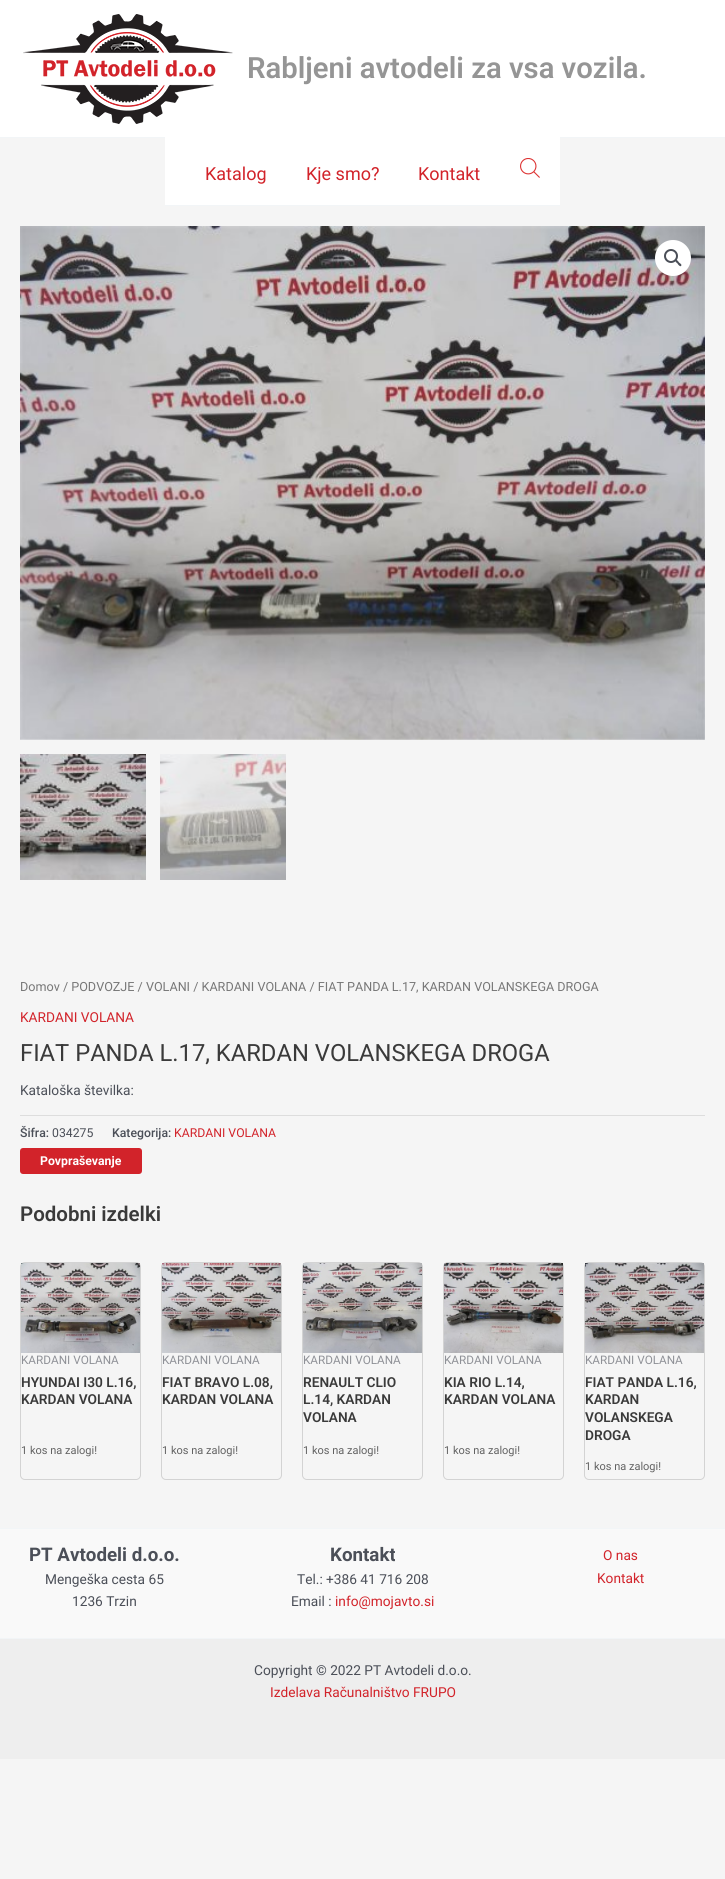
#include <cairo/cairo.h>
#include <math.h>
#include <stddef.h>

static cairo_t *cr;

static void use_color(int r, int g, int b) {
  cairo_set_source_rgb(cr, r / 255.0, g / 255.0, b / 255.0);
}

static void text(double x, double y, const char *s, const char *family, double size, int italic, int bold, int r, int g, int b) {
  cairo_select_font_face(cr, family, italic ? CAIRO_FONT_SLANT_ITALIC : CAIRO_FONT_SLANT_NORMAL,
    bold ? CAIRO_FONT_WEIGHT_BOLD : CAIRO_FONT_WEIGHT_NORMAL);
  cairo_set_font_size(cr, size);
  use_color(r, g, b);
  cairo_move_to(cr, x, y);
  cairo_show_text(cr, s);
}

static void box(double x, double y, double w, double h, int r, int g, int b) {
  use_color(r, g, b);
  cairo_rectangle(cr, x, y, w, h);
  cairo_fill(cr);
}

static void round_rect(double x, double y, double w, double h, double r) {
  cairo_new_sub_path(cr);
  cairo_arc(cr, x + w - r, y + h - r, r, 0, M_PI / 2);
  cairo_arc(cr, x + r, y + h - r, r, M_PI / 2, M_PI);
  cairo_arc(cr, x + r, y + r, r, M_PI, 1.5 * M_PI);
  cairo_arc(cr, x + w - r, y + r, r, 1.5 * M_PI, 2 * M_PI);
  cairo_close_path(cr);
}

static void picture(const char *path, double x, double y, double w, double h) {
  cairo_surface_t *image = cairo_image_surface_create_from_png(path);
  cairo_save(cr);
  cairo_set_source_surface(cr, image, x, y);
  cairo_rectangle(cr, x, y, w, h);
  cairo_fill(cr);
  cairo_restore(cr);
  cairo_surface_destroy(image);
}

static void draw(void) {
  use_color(245, 245, 245);
  cairo_paint(cr);
  box(0, 0, 725, 137, 255, 255, 255);
  box(0, 137, 725, 1, 242, 245, 247);
  picture("img_01.png", 23, 14, 210, 110);
  box(165, 137, 395, 68, 255, 255, 255);
  box(165, 205, 395, 1, 242, 245, 247);
  picture("img_02.png", 520, 158, 20, 20);
  picture("img_03.png", 20, 226, 685, 514);
  use_color(255, 255, 255);
  cairo_arc(cr, 673, 258, 18, 0, 2 * M_PI);
  cairo_fill(cr);
  cairo_arc(cr, 671, 256, 6, 0, 2 * M_PI);
  use_color(75, 79, 88);
  cairo_stroke(cr);
  cairo_new_path(cr);
  cairo_move_to(cr, 675.5, 260);
  cairo_curve_to(cr, 676.5, 259, 678.5, 261.5, 679, 262.5);
  cairo_curve_to(cr, 679.5, 263, 682.5, 264.5, 681, 266);
  cairo_curve_to(cr, 680, 267, 678, 264.5, 677.5, 263.5);
  cairo_curve_to(cr, 677, 263, 674.5, 261.5, 675.5, 260);
  cairo_close_path(cr);
  cairo_fill(cr);
  picture("img_04.png", 20, 754, 126, 126);
  picture("img_05.png", 160, 754, 126, 126);
  box(20, 1115, 685, 1, 221, 221, 221);
  use_color(210, 35, 42);
  round_rect(20, 1148, 122, 26, 3);
  cairo_fill(cr);
  round_rect(20.5, 1262.5, 120, 217, 4.5);
  use_color(211, 211, 211);
  cairo_set_line_width(cr, 1);
  cairo_stroke(cr);
  picture("img_06.png", 21, 1263, 119, 90);
  round_rect(161.5, 1262.5, 120, 217, 4.5);
  cairo_stroke(cr);
  picture("img_07.png", 162, 1263, 119, 90);
  round_rect(302.5, 1262.5, 120, 217, 4.5);
  cairo_stroke(cr);
  picture("img_08.png", 303, 1263, 119, 90);
  round_rect(443.5, 1262.5, 120, 217, 4.5);
  cairo_stroke(cr);
  picture("img_09.png", 444, 1263, 119, 90);
  round_rect(584.5, 1262.5, 120, 217, 4.5);
  cairo_stroke(cr);
  picture("img_10.png", 585, 1263, 119, 90);
  box(0, 1529, 725, 109, 249, 249, 249);
  box(0, 1528, 725, 1, 242, 245, 247);
  box(0, 1639, 725, 120, 238, 238, 238);
  box(0, 1638, 725, 1, 242, 245, 247);
  text(247, 78, "Rabljeni avtodeli za vsa vozila.", "Roboto SemiBold", 29.25, 0, 0, 149, 149, 149);
  text(205, 180, "Katalog", "Roboto", 18, 0, 0, 210, 35, 42);
  text(306, 180, "Kje smo?", "Roboto", 18, 0, 0, 210, 35, 42);
  text(418, 180, "Kontakt", "Roboto", 18, 0, 0, 210, 35, 42);
  text(20, 991, "Domov / PODVOZJE / VOLANI / KARDANI VOLANA / FIAT PANDA L.17, KARDAN VOLANSKEGA DROGA", "Roboto", 12.6, 0, 0, 119, 119, 119);
  text(20, 1022, "KARDANI VOLANA", "Roboto", 13.7, 0, 0, 210, 35, 42);
  text(20, 1061, "FIAT PANDA L.17, KARDAN VOLANSKEGA DROGA", "Roboto", 23.75, 0, 0, 58, 58, 58);
  text(20, 1095, "Kataloška številka:", "Roboto", 13.7, 0, 0, 75, 79, 88);
  text(20, 1137, "Šifra:", "Roboto Medium", 12.25, 0, 0, 75, 79, 88);
  text(52, 1137, "034275", "Roboto", 12.25, 0, 0, 75, 79, 88);
  text(112, 1137, "Kategorija:", "Roboto Medium", 12.25, 0, 0, 75, 79, 88);
  text(174, 1137, "KARDANI VOLANA", "Roboto", 12.25, 0, 0, 210, 35, 42);
  text(40, 1165, "Povpraševanje", "Roboto", 12.25, 0, 1, 255, 255, 255);
  text(20, 1221, "Podobni izdelki", "Roboto SemiBold", 20.5, 0, 0, 58, 58, 58);
  text(21, 1364, "KARDANI VOLANA", "Roboto", 11.75, 0, 0, 143, 145, 151);
  text(21, 1387, "HYUNDAI I30 L.16,", "Roboto SemiBold", 13.7, 0, 0, 58, 58, 58);
  text(21, 1404, "KARDAN VOLANA", "Roboto SemiBold", 13.7, 0, 0, 58, 58, 58);
  text(21, 1454, "1 kos na zalogi!", "Roboto", 11, 0, 0, 98, 98, 98);
  text(162, 1364, "KARDANI VOLANA", "Roboto", 11.75, 0, 0, 143, 145, 151);
  text(162, 1387, "FIAT BRAVO L.08,", "Roboto SemiBold", 13.7, 0, 0, 58, 58, 58);
  text(162, 1404, "KARDAN VOLANA", "Roboto SemiBold", 13.7, 0, 0, 58, 58, 58);
  text(162, 1454, "1 kos na zalogi!", "Roboto", 11, 0, 0, 98, 98, 98);
  text(303, 1364, "KARDANI VOLANA", "Roboto", 11.75, 0, 0, 143, 145, 151);
  text(303, 1387, "RENAULT CLIO", "Roboto SemiBold", 13.7, 0, 0, 58, 58, 58);
  text(303, 1404, "L.14, KARDAN", "Roboto SemiBold", 13.7, 0, 0, 58, 58, 58);
  text(303, 1422, "VOLANA", "Roboto SemiBold", 13.7, 0, 0, 58, 58, 58);
  text(303, 1454, "1 kos na zalogi!", "Roboto", 11, 0, 0, 98, 98, 98);
  text(444, 1364, "KARDANI VOLANA", "Roboto", 11.75, 0, 0, 143, 145, 151);
  text(444, 1387, "KIA RIO L.14,", "Roboto SemiBold", 13.7, 0, 0, 58, 58, 58);
  text(444, 1404, "KARDAN VOLANA", "Roboto SemiBold", 13.7, 0, 0, 58, 58, 58);
  text(444, 1454, "1 kos na zalogi!", "Roboto", 11, 0, 0, 98, 98, 98);
  text(585, 1364, "KARDANI VOLANA", "Roboto", 11.75, 0, 0, 143, 145, 151);
  text(585, 1387, "FIAT PANDA L.16,", "Roboto SemiBold", 13.7, 0, 0, 58, 58, 58);
  text(585, 1404, "KARDAN", "Roboto SemiBold", 13.7, 0, 0, 58, 58, 58);
  text(585, 1422, "VOLANSKEGA", "Roboto SemiBold", 13.7, 0, 0, 58, 58, 58);
  text(585, 1440, "DROGA", "Roboto SemiBold", 13.7, 0, 0, 58, 58, 58);
  text(585, 1470, "1 kos na zalogi!", "Roboto", 11, 0, 0, 98, 98, 98);
  text(29, 1561, "PT Avtodeli d.o.o.", "Roboto", 18.75, 0, 1, 75, 79, 88);
  text(45, 1584, "Mengeška cesta 65", "Roboto", 13.7, 0, 0, 75, 79, 88);
  text(72, 1606, "1236 Trzin", "Roboto", 13.7, 0, 0, 75, 79, 88);
  text(330, 1561, "Kontakt", "Roboto", 18.75, 0, 1, 75, 79, 88);
  text(297, 1584, "Tel.: +386 41 716 208", "Roboto", 13.7, 0, 0, 75, 79, 88);
  text(291, 1606, "Email :", "Roboto", 13.7, 0, 0, 75, 79, 88);
  text(335, 1606, "info@mojavto.si", "Roboto", 13.7, 0, 0, 210, 35, 42);
  text(603, 1560, "O nas", "Roboto", 13.7, 0, 0, 210, 35, 42);
  text(597, 1583, "Kontakt", "Roboto", 13.7, 0, 0, 210, 35, 42);
  text(254, 1675, "Copyright © 2022 PT Avtodeli d.o.o.", "Roboto", 13.7, 0, 0, 75, 79, 88);
  text(270, 1697, "Izdelava Računalništvo FRUPO", "Roboto", 13.7, 0, 0, 210, 35, 42);
}

int main(void) {
  cairo_surface_t *surface = cairo_image_surface_create(CAIRO_FORMAT_RGB24, 725, 1879);
  cr = cairo_create(surface);
  cairo_font_options_t *options = cairo_font_options_create();
  cairo_font_options_set_hint_metrics(options, CAIRO_HINT_METRICS_OFF);
  cairo_font_options_set_hint_style(options, CAIRO_HINT_STYLE_NONE);
  cairo_set_font_options(cr, options);
  cairo_set_miter_limit(cr, 4);
  draw();
  cairo_surface_write_to_png(surface, "out.png");
  cairo_font_options_destroy(options);
  cairo_destroy(cr);
  cairo_surface_destroy(surface);
  return 0;
}
